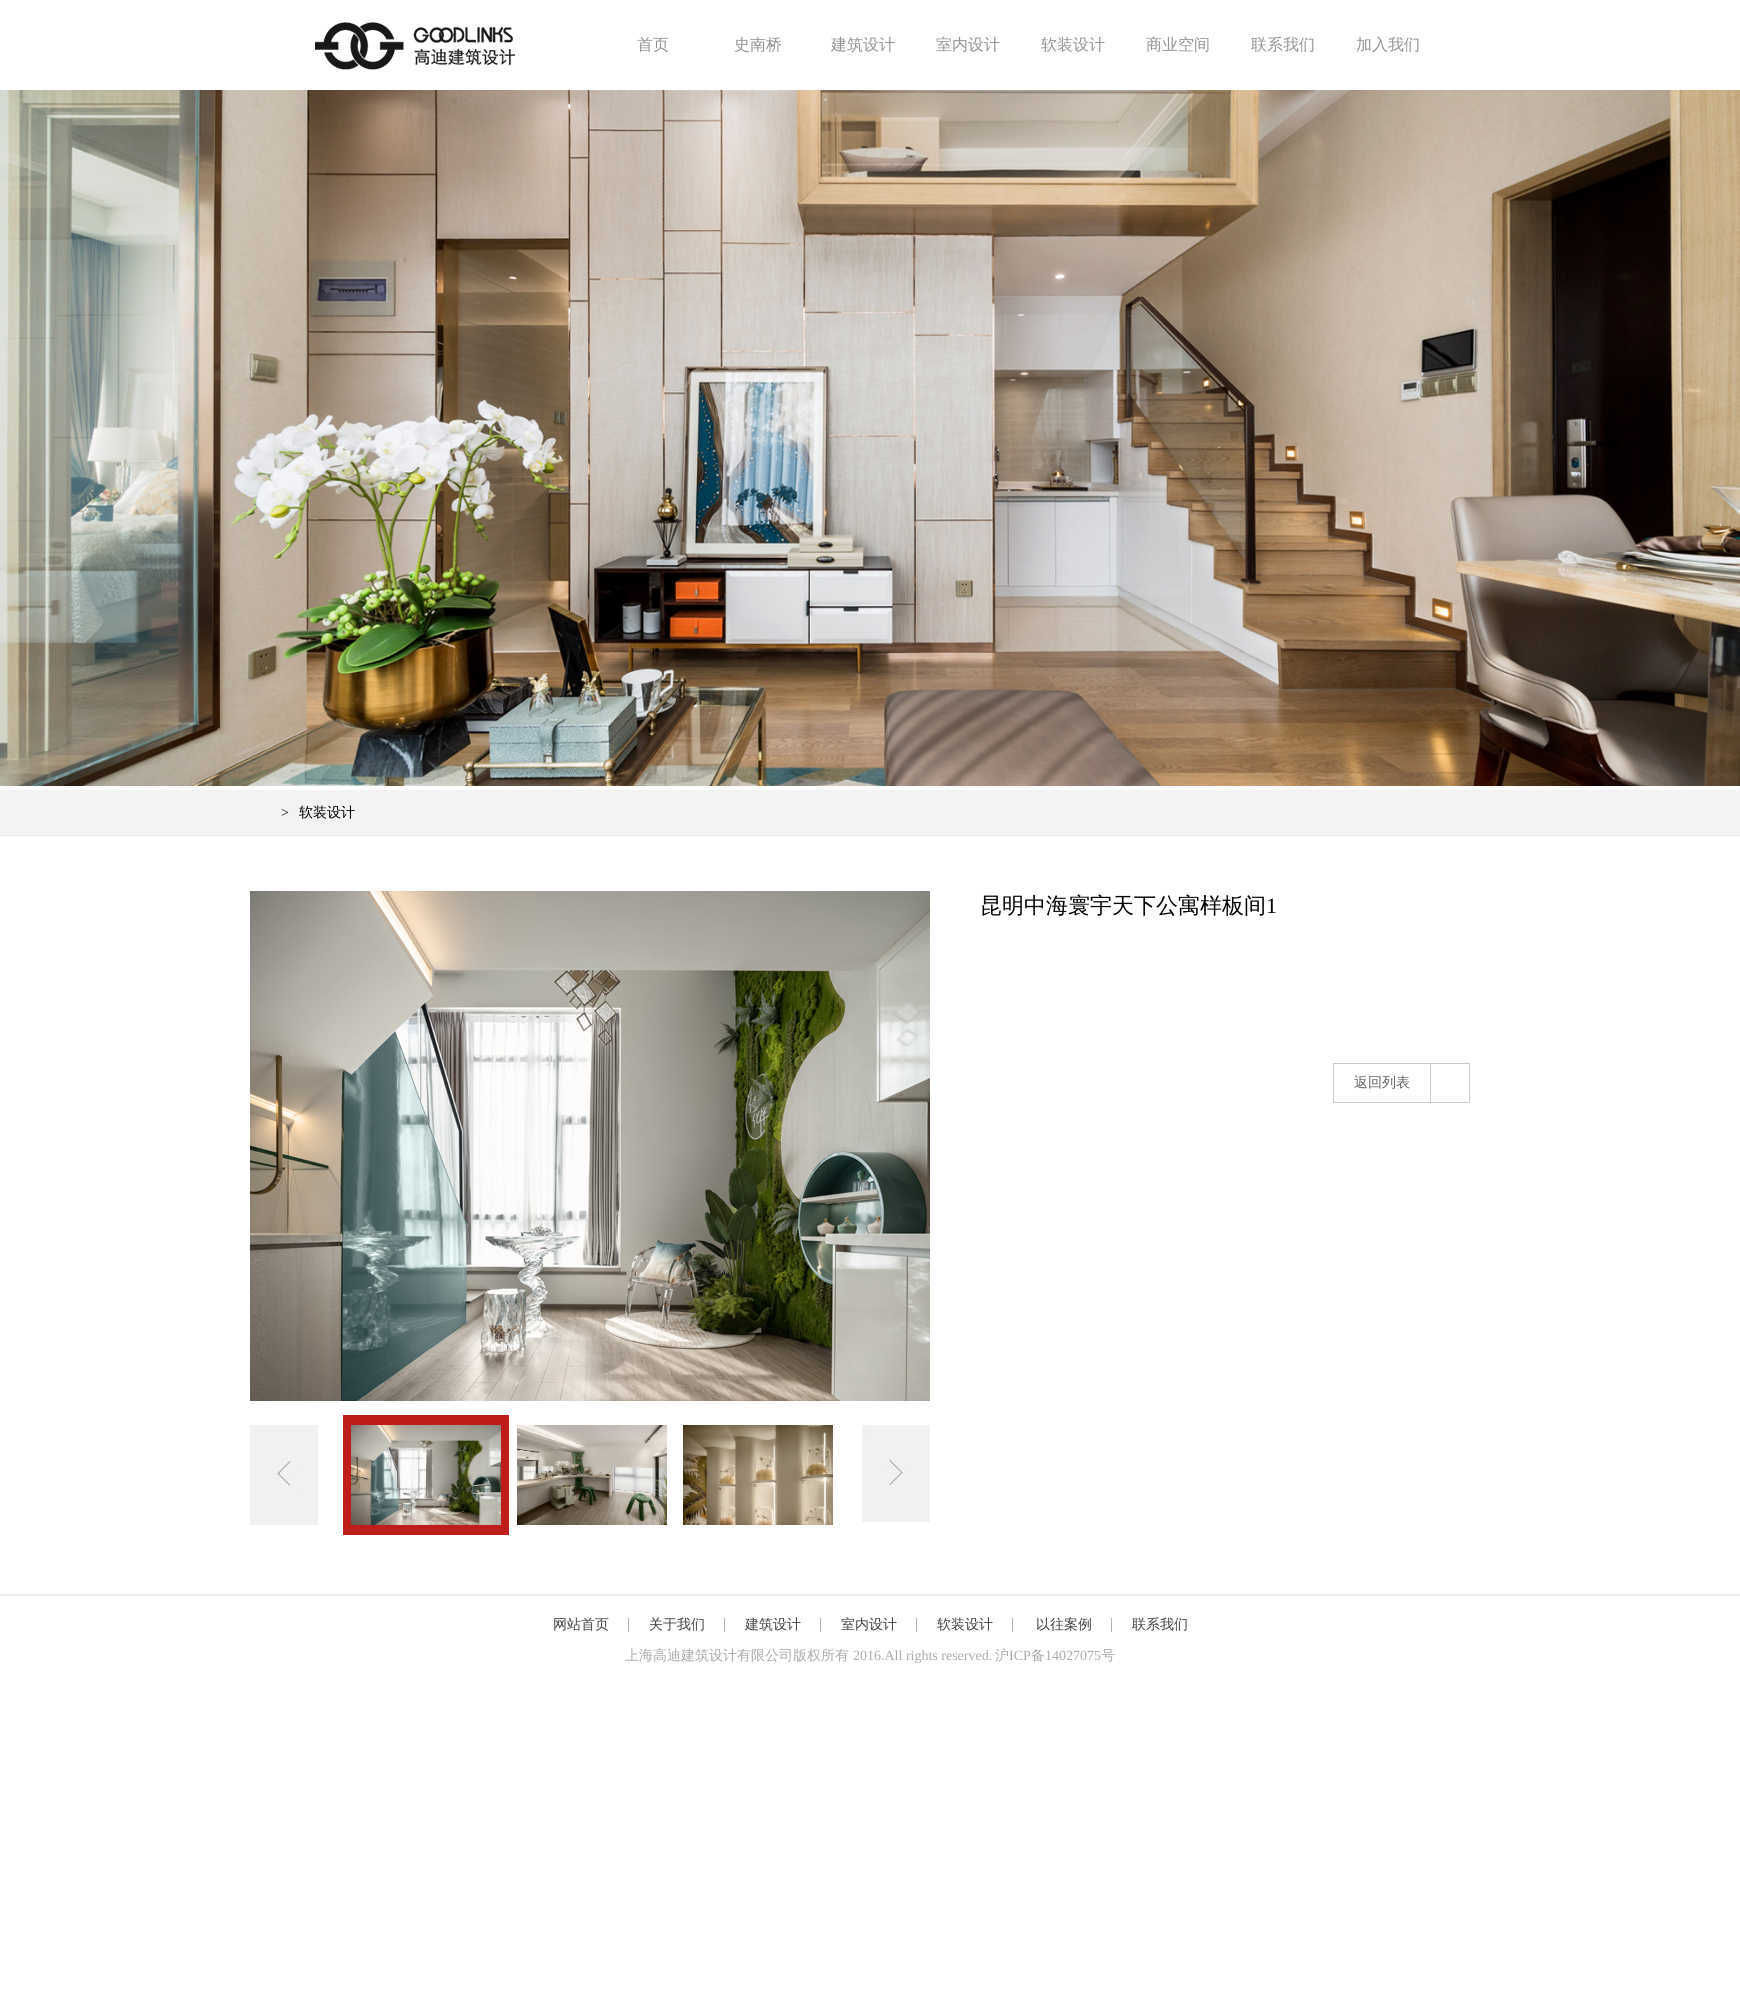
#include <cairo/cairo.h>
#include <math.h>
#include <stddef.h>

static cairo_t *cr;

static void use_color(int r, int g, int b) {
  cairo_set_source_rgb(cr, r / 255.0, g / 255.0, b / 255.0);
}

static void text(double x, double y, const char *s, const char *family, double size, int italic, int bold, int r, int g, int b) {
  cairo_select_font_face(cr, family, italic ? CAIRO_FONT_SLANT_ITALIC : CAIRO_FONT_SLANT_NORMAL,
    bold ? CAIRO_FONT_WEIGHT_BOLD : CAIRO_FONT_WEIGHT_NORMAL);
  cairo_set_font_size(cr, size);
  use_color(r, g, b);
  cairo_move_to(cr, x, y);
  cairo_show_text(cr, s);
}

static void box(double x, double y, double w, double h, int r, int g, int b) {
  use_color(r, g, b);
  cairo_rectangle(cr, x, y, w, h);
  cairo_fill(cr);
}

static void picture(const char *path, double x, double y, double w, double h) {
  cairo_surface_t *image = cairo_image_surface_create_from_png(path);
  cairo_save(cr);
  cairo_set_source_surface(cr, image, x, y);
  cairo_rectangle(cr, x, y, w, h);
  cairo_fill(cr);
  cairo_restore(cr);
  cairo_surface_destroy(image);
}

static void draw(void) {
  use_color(255, 255, 255);
  cairo_paint(cr);
  picture("img_01.png", 315, 22, 200, 48);
  picture("img_02.png", 0, 90, 1740, 696);
  box(0, 790, 1740, 45, 243, 243, 243);
  box(0, 835, 1740, 1, 233, 233, 233);
  picture("img_03.png", 250, 891, 680, 510);
  cairo_rectangle(cr, 1333.5, 1063.5, 136, 39);
  use_color(206, 203, 198);
  cairo_set_line_width(cr, 1);
  cairo_stroke(cr);
  box(1430, 1064, 1, 38, 206, 203, 198);
  picture("img_04.png", 250, 1425, 68, 100);
  box(351, 1415, 150, 10, 190, 29, 26);
  box(501, 1415, 8, 110, 190, 29, 26);
  box(351, 1525, 158, 10, 190, 29, 26);
  box(343, 1415, 8, 120, 190, 29, 26);
  picture("img_05.png", 351, 1425, 150, 100);
  picture("img_06.png", 517, 1425, 150, 100);
  picture("img_07.png", 683, 1425, 150, 100);
  picture("img_08.png", 862, 1425, 68, 97);
  box(0, 1594, 1740, 2, 237, 237, 237);
  box(628, 1618, 1, 14, 178, 178, 178);
  box(724, 1618, 1, 14, 178, 178, 178);
  box(820, 1618, 1, 14, 178, 178, 178);
  box(916, 1618, 1, 14, 178, 178, 178);
  box(1012, 1618, 1, 14, 178, 178, 178);
  box(1111, 1618, 1, 14, 178, 178, 178);
  text(637, 50, "首页", "WenQuanYi Zen Hei Medium", 16, 0, 0, 148, 148, 148);
  text(734, 50, "史南桥", "WenQuanYi Zen Hei Medium", 16, 0, 0, 148, 148, 148);
  text(831, 50, "建筑设计", "WenQuanYi Zen Hei Medium", 16, 0, 0, 148, 148, 148);
  text(936, 50, "室内设计", "WenQuanYi Zen Hei Medium", 16, 0, 0, 148, 148, 148);
  text(1041, 50, "软装设计", "WenQuanYi Zen Hei Medium", 16, 0, 0, 148, 148, 148);
  text(1146, 50, "商业空间", "WenQuanYi Zen Hei Medium", 16, 0, 0, 148, 148, 148);
  text(1251, 50, "联系我们", "WenQuanYi Zen Hei Medium", 16, 0, 0, 148, 148, 148);
  text(1356, 50, "加入我们", "WenQuanYi Zen Hei Medium", 16, 0, 0, 148, 148, 148);
  text(281, 817, ">", "Liberation Serif", 14, 0, 0, 0, 0, 0);
  text(299, 817, "软装设计", "WenQuanYi Zen Hei Medium", 14, 0, 0, 0, 0, 0);
  text(980, 913, "昆明中海寰宇天下公寓样板间", "WenQuanYi Zen Hei Medium", 22, 0, 0, 0, 0, 0);
  text(1266, 913, "1", "Liberation Serif", 22, 0, 0, 0, 0, 0);
  text(1354, 1087, "返回列表", "WenQuanYi Zen Hei Medium", 14, 0, 0, 102, 102, 102);
  text(553, 1629, "网站首页", "WenQuanYi Zen Hei Medium", 14, 0, 0, 70, 64, 65);
  text(649, 1629, "关于我们", "WenQuanYi Zen Hei Medium", 14, 0, 0, 70, 64, 65);
  text(745, 1629, "建筑设计", "WenQuanYi Zen Hei Medium", 14, 0, 0, 70, 64, 65);
  text(841, 1629, "室内设计", "WenQuanYi Zen Hei Medium", 14, 0, 0, 70, 64, 65);
  text(937, 1629, "软装设计", "WenQuanYi Zen Hei Medium", 14, 0, 0, 70, 64, 65);
  text(1036, 1629, "以往案例", "WenQuanYi Zen Hei Medium", 14, 0, 0, 70, 64, 65);
  text(1132, 1629, "联系我们", "WenQuanYi Zen Hei Medium", 14, 0, 0, 70, 64, 65);
  text(625, 1660, "上海高迪建筑设计有限公司版权所有", "WenQuanYi Zen Hei Medium", 14, 0, 0, 173, 170, 171);
  text(853, 1660, "2016.All rights reserved.", "Liberation Serif", 14, 0, 0, 173, 170, 171);
  text(995, 1660, "沪", "WenQuanYi Zen Hei Medium", 14, 0, 0, 173, 170, 171);
  text(1009, 1660, "ICP", "Liberation Serif", 14, 0, 0, 173, 170, 171);
  text(1031, 1660, "备", "WenQuanYi Zen Hei Medium", 14, 0, 0, 173, 170, 171);
  text(1045, 1660, "14027075", "Liberation Serif", 14, 0, 0, 173, 170, 171);
  text(1101, 1660, "号", "WenQuanYi Zen Hei Medium", 14, 0, 0, 173, 170, 171);
}

int main(void) {
  cairo_surface_t *surface = cairo_image_surface_create(CAIRO_FORMAT_RGB24, 1740, 2007);
  cr = cairo_create(surface);
  cairo_font_options_t *options = cairo_font_options_create();
  cairo_font_options_set_hint_metrics(options, CAIRO_HINT_METRICS_OFF);
  cairo_font_options_set_hint_style(options, CAIRO_HINT_STYLE_NONE);
  cairo_set_font_options(cr, options);
  cairo_set_miter_limit(cr, 4);
  draw();
  cairo_surface_write_to_png(surface, "out.png");
  cairo_font_options_destroy(options);
  cairo_destroy(cr);
  cairo_surface_destroy(surface);
  return 0;
}
